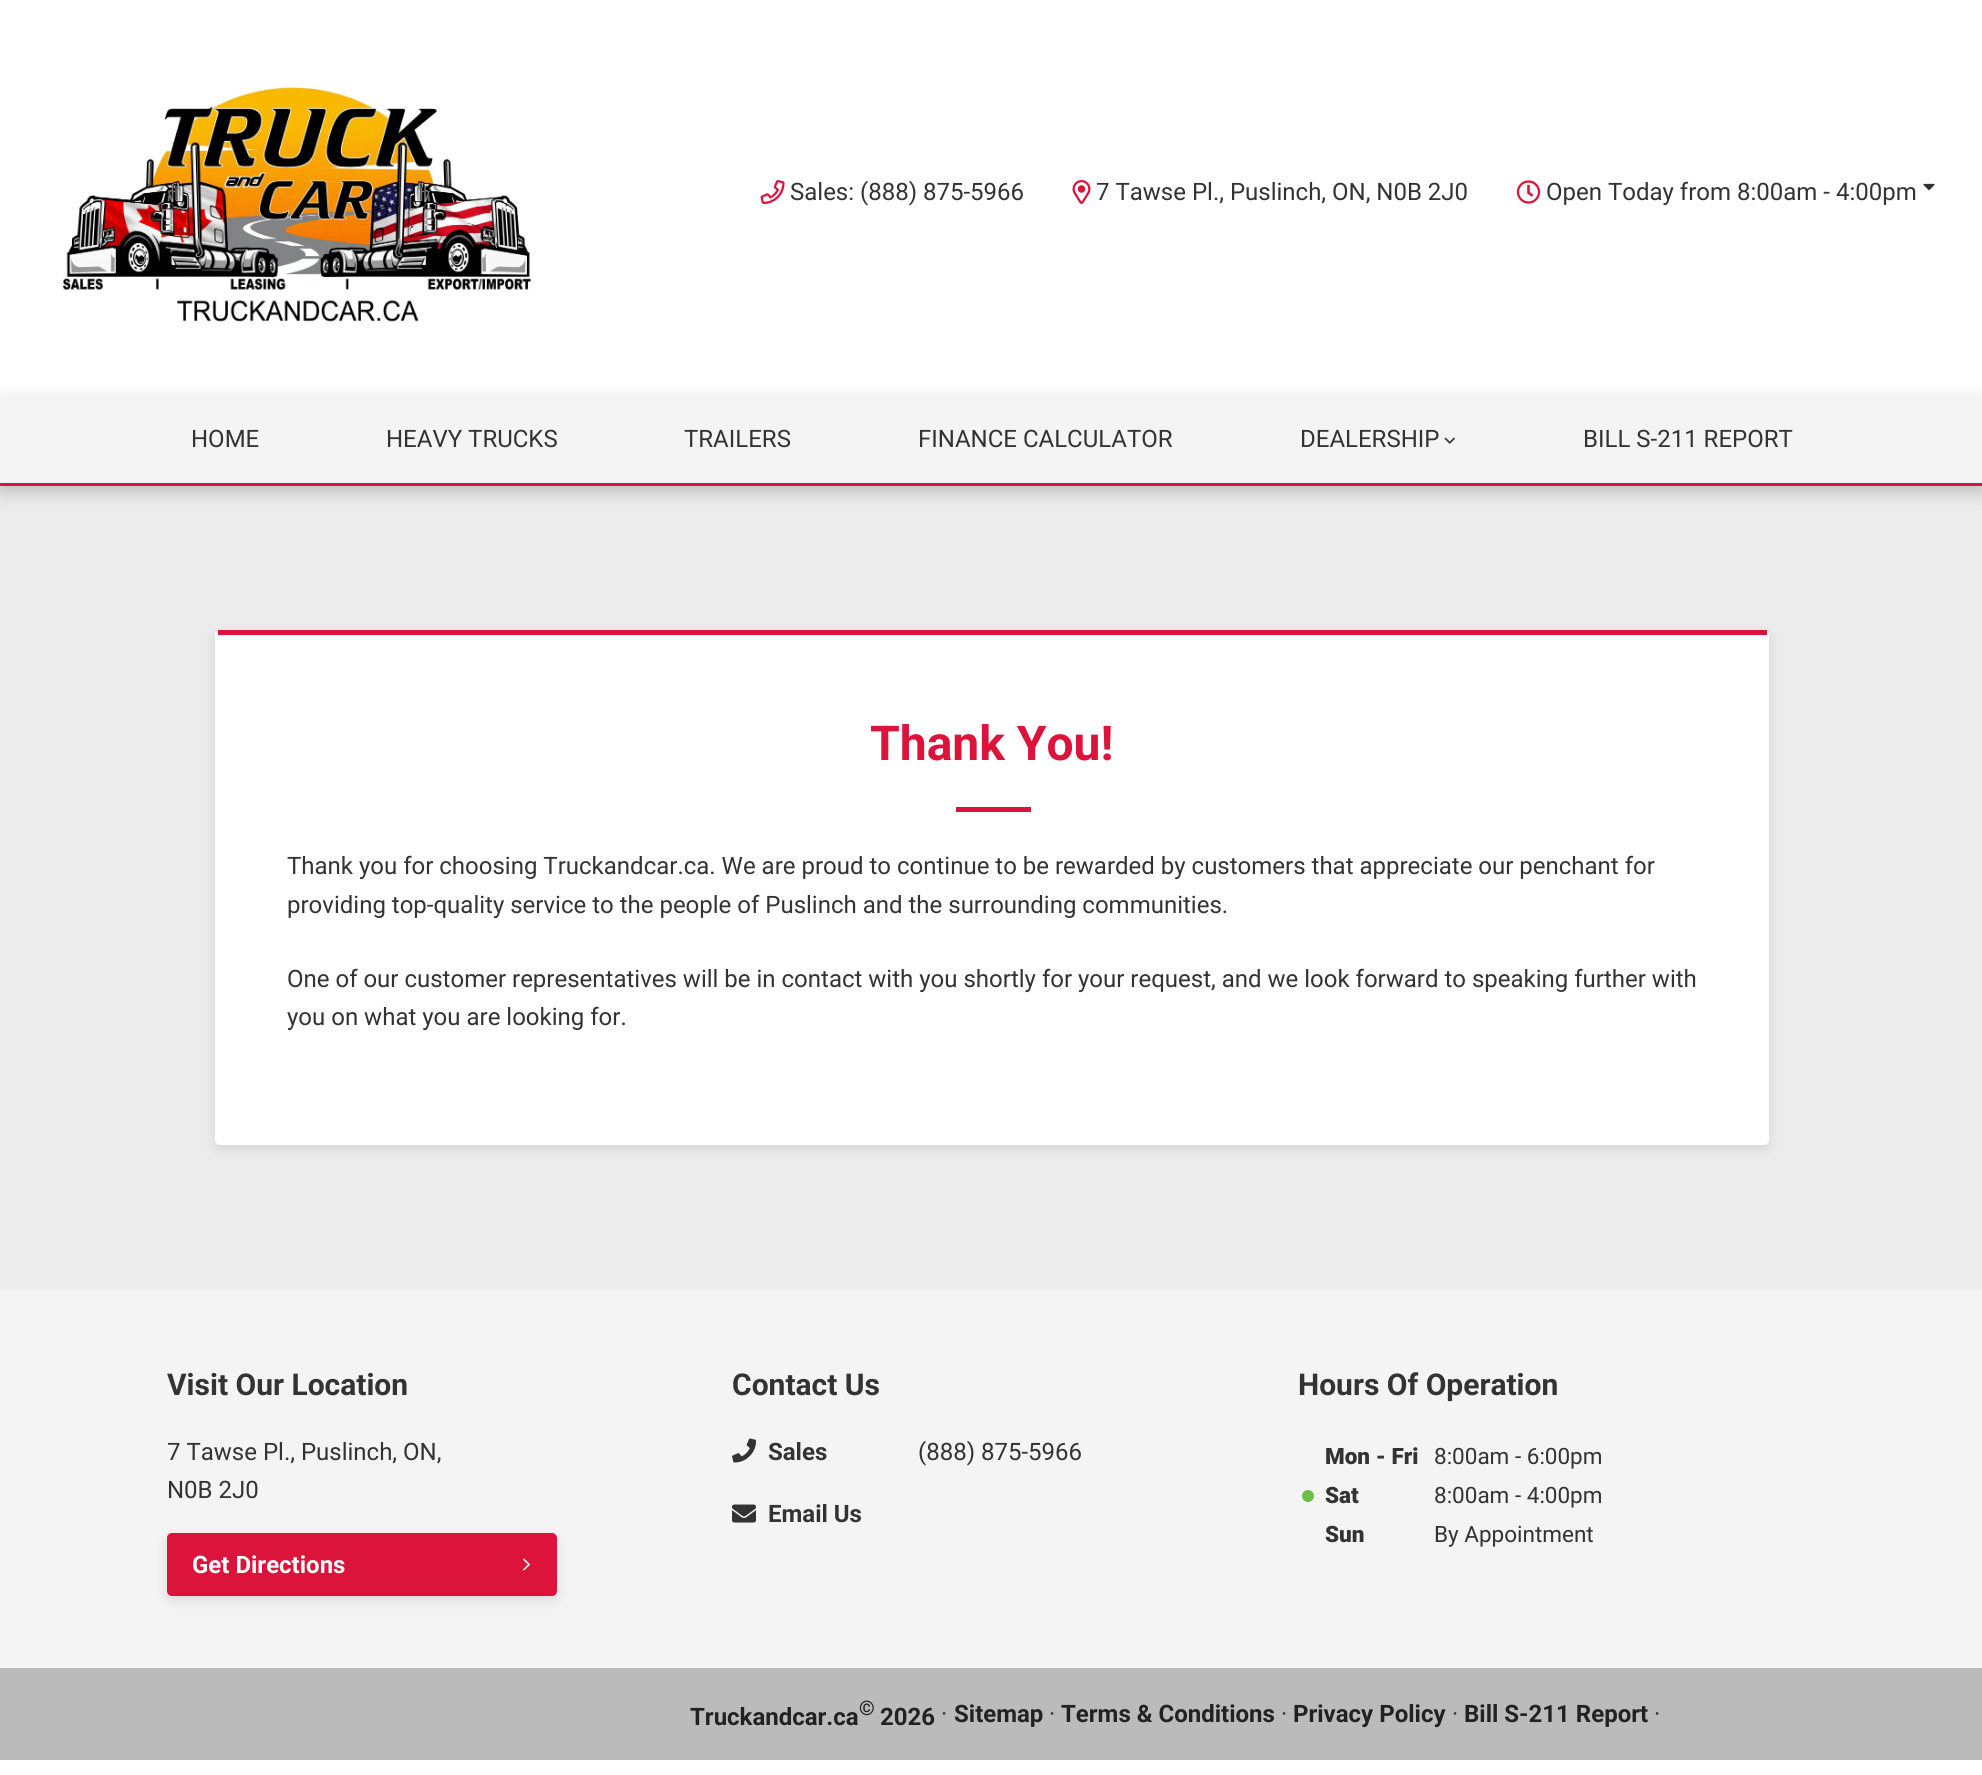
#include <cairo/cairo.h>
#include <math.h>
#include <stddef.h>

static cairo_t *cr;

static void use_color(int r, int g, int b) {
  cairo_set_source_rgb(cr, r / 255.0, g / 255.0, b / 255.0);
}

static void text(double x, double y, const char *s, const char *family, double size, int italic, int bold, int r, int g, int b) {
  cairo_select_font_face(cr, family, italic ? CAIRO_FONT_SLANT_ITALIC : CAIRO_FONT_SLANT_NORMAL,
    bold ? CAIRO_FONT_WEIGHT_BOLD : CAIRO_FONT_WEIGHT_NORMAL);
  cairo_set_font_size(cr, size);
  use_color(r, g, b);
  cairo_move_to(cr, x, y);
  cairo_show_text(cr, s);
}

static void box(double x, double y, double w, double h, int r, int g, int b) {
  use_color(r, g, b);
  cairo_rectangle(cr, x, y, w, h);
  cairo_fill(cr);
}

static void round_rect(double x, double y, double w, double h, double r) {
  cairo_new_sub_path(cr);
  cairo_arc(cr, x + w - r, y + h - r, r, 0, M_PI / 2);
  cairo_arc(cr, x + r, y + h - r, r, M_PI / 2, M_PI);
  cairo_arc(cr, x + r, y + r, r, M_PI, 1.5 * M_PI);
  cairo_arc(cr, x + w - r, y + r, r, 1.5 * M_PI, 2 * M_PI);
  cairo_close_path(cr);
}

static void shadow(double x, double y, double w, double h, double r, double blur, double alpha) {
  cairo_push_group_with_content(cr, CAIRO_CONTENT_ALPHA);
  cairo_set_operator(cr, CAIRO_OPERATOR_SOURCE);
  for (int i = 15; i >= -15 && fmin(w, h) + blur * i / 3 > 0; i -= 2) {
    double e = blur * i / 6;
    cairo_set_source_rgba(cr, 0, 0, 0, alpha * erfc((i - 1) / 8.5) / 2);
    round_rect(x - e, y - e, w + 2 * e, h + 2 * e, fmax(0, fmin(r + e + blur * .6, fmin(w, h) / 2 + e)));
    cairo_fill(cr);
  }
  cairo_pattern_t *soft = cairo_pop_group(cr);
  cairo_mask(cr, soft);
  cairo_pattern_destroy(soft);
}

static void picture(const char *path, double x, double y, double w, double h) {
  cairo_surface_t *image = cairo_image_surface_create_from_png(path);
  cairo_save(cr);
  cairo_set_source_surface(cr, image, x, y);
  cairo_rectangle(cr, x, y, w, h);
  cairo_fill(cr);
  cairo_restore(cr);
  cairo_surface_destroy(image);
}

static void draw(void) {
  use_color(255, 255, 255);
  cairo_paint(cr);
  picture("img_01.png", 63, 86, 468, 236);
  picture("img_02.png", 760, 180, 25, 24);
  picture("img_03.png", 1072, 180, 19, 24);
  picture("img_04.png", 1516, 180, 25, 24);
  picture("img_05.png", 1923, 183, 12, 8);
  box(0, 486, 1982, 803, 236, 236, 236);
  use_color(0, 0, 0);
  shadow(0, 402, 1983, 90, 0, 9, 0.2);
  box(0, 396, 1982, 87, 244, 244, 244);
  box(0, 483, 1982, 3, 220, 20, 60);
  picture("img_06.png", 1444, 437, 11, 7);
  use_color(0, 0, 0);
  shadow(215, 635, 1554, 514, 5, 6, 0.1);
  use_color(255, 255, 255);
  round_rect(215, 630, 1554, 515, 5);
  cairo_fill(cr);
  box(218, 630, 1549, 5, 220, 20, 60);
  box(956, 807, 75, 5, 220, 20, 60);
  box(0, 1289, 1982, 379, 244, 244, 244);
  use_color(0, 0, 0);
  shadow(167, 1538, 390, 63, 5, 6, 0.1);
  use_color(220, 20, 60);
  round_rect(167, 1533, 390, 63, 5);
  cairo_fill(cr);
  picture("img_07.png", 523, 1558, 7, 13);
  picture("img_08.png", 732, 1438, 24, 25);
  picture("img_09.png", 732, 1504, 24, 19);
  use_color(107, 191, 73);
  cairo_arc(cr, 1308, 1496, 6, 0, 2 * M_PI);
  cairo_fill(cr);
  box(0, 1668, 1982, 92, 187, 187, 187);
  text(790, 200, "Sales: (888) 875-5966", "Roboto", 24, 0, 0, 51, 51, 51);
  text(1096, 200, "7 Tawse Pl., Puslinch, ON, N0B 2J0", "Roboto", 24, 0, 0, 51, 51, 51);
  text(1546, 200, "Open Today from 8:00am - 4:00pm", "Roboto", 24, 0, 0, 51, 51, 51);
  text(191, 447, "HOME", "Roboto", 24, 0, 0, 51, 51, 51);
  text(386, 447, "HEAVY TRUCKS", "Roboto", 24, 0, 0, 51, 51, 51);
  text(684, 447, "TRAILERS", "Roboto", 24, 0, 0, 51, 51, 51);
  text(918, 447, "FINANCE CALCULATOR", "Roboto", 24, 0, 0, 51, 51, 51);
  text(1300, 447, "DEALERSHIP", "Roboto", 24, 0, 0, 51, 51, 51);
  text(1583, 447, "BILL S-211 REPORT", "Roboto", 24, 0, 0, 51, 51, 51);
  text(870, 760, "Thank You!", "Roboto", 48, 0, 1, 220, 20, 60);
  text(287, 874, "Thank you for choosing Truckandcar.ca. We are proud to continue to be rewarded by customers that appreciate our penchant for", "Roboto", 24, 0, 0, 51, 51, 51);
  text(287, 913, "providing top-quality service to the people of Puslinch and the surrounding communities.", "Roboto", 24, 0, 0, 51, 51, 51);
  text(287, 987, "One of our customer representatives will be in contact with you shortly for your request, and we look forward to speaking further with", "Roboto", 24, 0, 0, 51, 51, 51);
  text(287, 1025, "you on what you are looking for.", "Roboto", 24, 0, 0, 51, 51, 51);
  text(167, 1395, "Visit Our Location", "Roboto", 30, 0, 1, 51, 51, 51);
  text(167, 1460, "7 Tawse Pl., Puslinch, ON,", "Roboto", 24, 0, 0, 51, 51, 51);
  text(167, 1498, "N0B 2J0", "Roboto", 24, 0, 0, 51, 51, 51);
  text(192, 1573, "Get Directions", "Roboto", 24, 0, 1, 255, 255, 255);
  text(732, 1395, "Contact Us", "Roboto", 30, 0, 1, 51, 51, 51);
  text(768, 1460, "Sales", "Roboto", 24, 0, 1, 51, 51, 51);
  text(918, 1460, "(888) 875-5966", "Roboto", 24, 0, 0, 51, 51, 51);
  text(768, 1522, "Email Us", "Roboto", 24, 0, 1, 51, 51, 51);
  text(1298, 1395, "Hours Of Operation", "Roboto", 30, 0, 1, 51, 51, 51);
  text(1325, 1464, "Mon - Fri", "Roboto Black", 22.5, 0, 0, 51, 51, 51);
  text(1434, 1464, "8:00am - 6:00pm", "Roboto", 22.5, 0, 0, 51, 51, 51);
  text(1325, 1503, "Sat", "Roboto Black", 22.5, 0, 0, 51, 51, 51);
  text(1434, 1503, "8:00am - 4:00pm", "Roboto", 22.5, 0, 0, 51, 51, 51);
  text(1325, 1542, "Sun", "Roboto Black", 22.5, 0, 0, 51, 51, 51);
  text(1434, 1542, "By Appointment", "Roboto", 22.5, 0, 0, 51, 51, 51);
  text(690, 1725, "Truckandcar.ca", "Roboto", 24, 0, 1, 34, 34, 34);
  text(859, 1715, "©", "Roboto", 20, 0, 1, 34, 34, 34);
  text(880, 1725, "2026", "Roboto", 24, 0, 1, 34, 34, 34);
  text(941, 1722, "·", "Roboto", 24, 0, 0, 51, 51, 51);
  text(954, 1722, "Sitemap", "Roboto", 24, 0, 1, 34, 34, 34);
  text(1049, 1722, "·", "Roboto", 24, 0, 0, 51, 51, 51);
  text(1061, 1722, "Terms & Conditions", "Roboto", 24, 0, 1, 34, 34, 34);
  text(1281, 1722, "·", "Roboto", 24, 0, 0, 51, 51, 51);
  text(1293, 1722, "Privacy Policy", "Roboto", 24, 0, 1, 34, 34, 34);
  text(1452, 1722, "·", "Roboto", 24, 0, 0, 51, 51, 51);
  text(1464, 1722, "Bill S-211 Report", "Roboto", 24, 0, 1, 34, 34, 34);
  text(1654, 1722, "·", "Roboto", 24, 0, 0, 51, 51, 51);
}

int main(void) {
  cairo_surface_t *surface = cairo_image_surface_create(CAIRO_FORMAT_RGB24, 1982, 1775);
  cr = cairo_create(surface);
  cairo_font_options_t *options = cairo_font_options_create();
  cairo_font_options_set_hint_metrics(options, CAIRO_HINT_METRICS_OFF);
  cairo_font_options_set_hint_style(options, CAIRO_HINT_STYLE_NONE);
  cairo_set_font_options(cr, options);
  cairo_set_miter_limit(cr, 4);
  draw();
  cairo_surface_write_to_png(surface, "out.png");
  cairo_font_options_destroy(options);
  cairo_destroy(cr);
  cairo_surface_destroy(surface);
  return 0;
}
